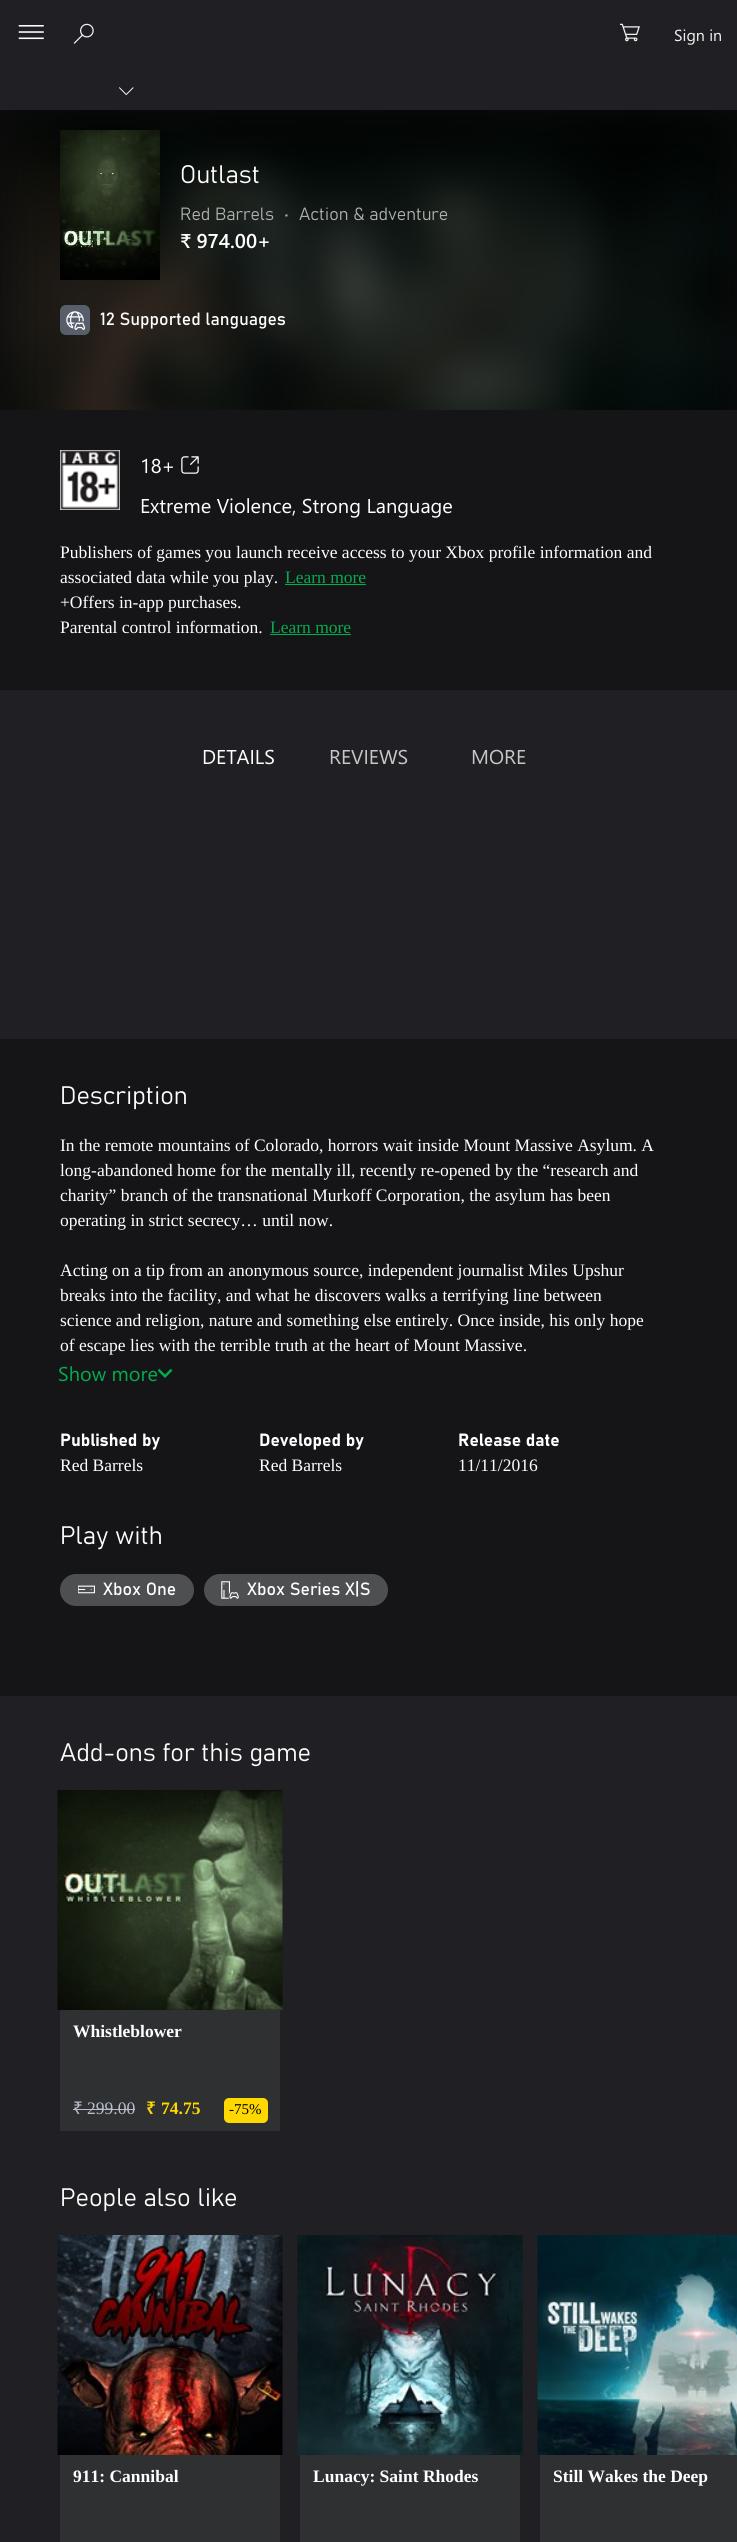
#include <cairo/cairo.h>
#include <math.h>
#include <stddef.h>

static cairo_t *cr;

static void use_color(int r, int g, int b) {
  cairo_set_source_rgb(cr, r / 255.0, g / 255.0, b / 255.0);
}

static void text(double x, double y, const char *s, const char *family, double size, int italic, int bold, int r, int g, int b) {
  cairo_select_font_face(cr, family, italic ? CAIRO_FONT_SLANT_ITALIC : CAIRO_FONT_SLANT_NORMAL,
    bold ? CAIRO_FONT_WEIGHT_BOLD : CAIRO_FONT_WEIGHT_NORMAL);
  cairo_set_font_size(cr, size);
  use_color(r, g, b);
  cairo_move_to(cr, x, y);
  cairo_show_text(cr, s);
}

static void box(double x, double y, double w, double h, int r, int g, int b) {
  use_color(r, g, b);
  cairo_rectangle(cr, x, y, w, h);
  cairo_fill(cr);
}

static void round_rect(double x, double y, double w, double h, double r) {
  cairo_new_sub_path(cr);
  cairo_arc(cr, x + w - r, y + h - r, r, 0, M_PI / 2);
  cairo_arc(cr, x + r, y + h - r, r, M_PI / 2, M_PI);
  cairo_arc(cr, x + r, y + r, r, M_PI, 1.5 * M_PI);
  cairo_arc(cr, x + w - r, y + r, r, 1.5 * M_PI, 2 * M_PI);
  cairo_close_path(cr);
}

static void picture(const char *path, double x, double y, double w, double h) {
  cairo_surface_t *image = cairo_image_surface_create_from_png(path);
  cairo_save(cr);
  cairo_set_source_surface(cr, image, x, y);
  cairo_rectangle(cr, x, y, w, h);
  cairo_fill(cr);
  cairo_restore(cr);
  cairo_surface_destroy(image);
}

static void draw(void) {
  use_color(32, 31, 36);
  cairo_paint(cr);
  box(0, 110, 737, 300, 12, 11, 13);
  picture("img_01.png", 18, 25, 26, 15);
  picture("img_02.png", 73, 23, 21, 21);
  picture("img_03.png", 620, 23, 20, 19);
  picture("img_04.png", 119, 87, 15, 9);
  picture("img_05.png", 0, 110, 737, 300);
  picture("img_06.png", 60, 130, 100, 150);
  use_color(87, 95, 107);
  round_rect(60, 305, 30, 30, 6);
  cairo_fill(cr);
  picture("img_07.png", 66, 311, 19, 19);
  box(0, 410, 737, 280, 21, 21, 23);
  picture("img_08.png", 60, 450, 60, 60);
  picture("img_09.png", 181, 456, 18, 18);
  box(285, 584, 81, 1, 4, 171, 79);
  box(270, 634, 81, 1, 4, 171, 79);
  box(0, 1039, 737, 657, 21, 21, 23);
  picture("img_10.png", 158, 1368, 15, 10);
  use_color(77, 79, 81);
  round_rect(60, 1574, 134, 32, 16);
  cairo_fill(cr);
  picture("img_11.png", 78, 1585, 17, 9);
  round_rect(204, 1574, 184, 32, 16);
  cairo_fill(cr);
  picture("img_12.png", 221, 1581, 18, 18);
  box(60, 2010, 220, 121, 47, 48, 50);
  picture("img_13.png", 57, 1790, 226, 220);
  box(73, 2109, 62, 1, 185, 191, 205);
  use_color(255, 216, 0);
  round_rect(224, 2098, 44, 25, 5);
  cairo_fill(cr);
  box(60, 2455, 220, 87, 47, 48, 50);
  picture("img_14.png", 57, 2235, 226, 220);
  box(300, 2455, 220, 87, 47, 48, 50);
  picture("img_15.png", 297, 2235, 226, 220);
  box(540, 2455, 197, 87, 47, 48, 50);
  picture("img_16.png", 537, 2235, 200, 220);
  text(674, 41, "Sign in", "Segoe UI", 16, 0, 0, 242, 242, 242);
  text(180, 183, "Outlast", "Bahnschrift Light", 25, 0, 0, 255, 255, 255);
  text(180, 220, "Red Barrels", "Bahnschrift Light", 17.5, 0, 0, 175, 177, 175);
  text(284, 220, "•", "Bahnschrift Light", 17.5, 0, 0, 175, 177, 175);
  text(299, 220, "Action & adventure", "Bahnschrift Light", 17.5, 0, 0, 175, 177, 175);
  text(180, 248, "₹ 974.00+", "Segoe UI SemiBold", 20, 0, 0, 255, 255, 255);
  text(100, 325, "12 Supported languages", "Bahnschrift", 17.5, 0, 0, 255, 255, 255);
  text(140, 473, "18+", "Segoe UI", 20, 0, 0, 255, 255, 255);
  text(140, 513, "Extreme Violence, Strong Language", "Segoe UI", 20, 0, 0, 255, 255, 255);
  text(60, 558, "Publishers of games you launch receive access to your Xbox profile information and", "Liberation Serif", 17.5, 0, 0, 255, 255, 255);
  text(60, 583, "associated data while you play.", "Liberation Serif", 17.5, 0, 0, 255, 255, 255);
  text(285, 583, "Learn more", "Liberation Serif", 17.5, 0, 0, 4, 171, 79);
  text(60, 608, "+Offers in-app purchases.", "Liberation Serif", 17.5, 0, 0, 255, 255, 255);
  text(60, 633, "Parental control information.", "Liberation Serif", 17.5, 0, 0, 255, 255, 255);
  text(270, 633, "Learn more", "Liberation Serif", 17.5, 0, 0, 4, 171, 79);
  text(202, 764, "DETAILS", "Segoe UI", 20, 0, 0, 255, 255, 255);
  text(329, 764, "REVIEWS", "Segoe UI", 20, 0, 0, 199, 199, 200);
  text(471, 764, "MORE", "Segoe UI", 20, 0, 0, 199, 199, 200);
  text(60, 1104, "Description", "Bahnschrift Light", 25, 0, 0, 255, 255, 255);
  text(60, 1151, "In the remote mountains of Colorado, horrors wait inside Mount Massive Asylum. A", "Liberation Serif", 17.5, 0, 0, 255, 255, 255);
  text(60, 1176, "long-abandoned home for the mentally ill, recently re-opened by the “research and", "Liberation Serif", 17.5, 0, 0, 255, 255, 255);
  text(60, 1201, "charity” branch of the transnational Murkoff Corporation, the asylum has been", "Liberation Serif", 17.5, 0, 0, 255, 255, 255);
  text(60, 1226, "operating in strict secrecy… until now.", "Liberation Serif", 17.5, 0, 0, 255, 255, 255);
  text(60, 1276, "Acting on a tip from an anonymous source, independent journalist Miles Upshur", "Liberation Serif", 17.5, 0, 0, 255, 255, 255);
  text(60, 1301, "breaks into the facility, and what he discovers walks a terrifying line between", "Liberation Serif", 17.5, 0, 0, 255, 255, 255);
  text(60, 1326, "science and religion, nature and something else entirely. Once inside, his only hope", "Liberation Serif", 17.5, 0, 0, 255, 255, 255);
  text(60, 1351, "of escape lies with the terrible truth at the heart of Mount Massive.", "Liberation Serif", 17.5, 0, 0, 255, 255, 255);
  text(58, 1381, "Show more", "Segoe UI", 20, 0, 0, 4, 171, 79);
  text(60, 1446, "Published by", "Bahnschrift", 17.5, 0, 1, 255, 255, 255);
  text(60, 1471, "Red Barrels", "Liberation Serif", 17.5, 0, 0, 255, 255, 255);
  text(259, 1446, "Developed by", "Bahnschrift", 17.5, 0, 1, 255, 255, 255);
  text(259, 1471, "Red Barrels", "Liberation Serif", 17.5, 0, 0, 255, 255, 255);
  text(458, 1446, "Release date", "Bahnschrift", 17.5, 0, 1, 255, 255, 255);
  text(458, 1471, "11/11/2016", "Liberation Serif", 17.5, 0, 0, 255, 255, 255);
  text(60, 1544, "Play with", "Bahnschrift Light", 25, 0, 0, 255, 255, 255);
  text(103, 1595, "Xbox One", "Bahnschrift", 17.5, 0, 0, 255, 255, 255);
  text(247, 1595, "Xbox Series X|S", "Bahnschrift", 17.5, 0, 0, 255, 255, 255);
  text(60, 1761, "Add-ons for this game", "Bahnschrift Light", 25, 0, 0, 255, 255, 255);
  text(73, 2037, "Whistleblower", "Liberation Serif", 17.5, 0, 1, 255, 255, 255);
  text(73, 2114, "₹", "Noto Sans", 17.5, 0, 0, 185, 191, 205);
  text(87, 2114, "299.00", "Liberation Serif", 17.5, 0, 0, 185, 191, 205);
  text(146, 2114, "₹", "Noto Sans SemiBold", 17.5, 0, 0, 255, 216, 0);
  text(161, 2114, "74.75", "Liberation Serif", 17.5, 0, 1, 255, 216, 0);
  text(229, 2114, "-75%", "Liberation Serif", 15, 0, 0, 0, 0, 0);
  text(60, 2206, "People also like", "Bahnschrift Light", 25, 0, 0, 255, 255, 255);
  text(73, 2482, "911: Cannibal", "Liberation Serif", 17.5, 0, 1, 255, 255, 255);
  text(313, 2482, "Lunacy: Saint Rhodes", "Liberation Serif", 17.5, 0, 1, 255, 255, 255);
  text(553, 2482, "Still Wakes the Deep", "Liberation Serif", 17.5, 0, 1, 255, 255, 255);
}

int main(void) {
  cairo_surface_t *surface = cairo_image_surface_create(CAIRO_FORMAT_RGB24, 737, 2542);
  cr = cairo_create(surface);
  cairo_font_options_t *options = cairo_font_options_create();
  cairo_font_options_set_hint_metrics(options, CAIRO_HINT_METRICS_OFF);
  cairo_font_options_set_hint_style(options, CAIRO_HINT_STYLE_NONE);
  cairo_set_font_options(cr, options);
  cairo_set_miter_limit(cr, 4);
  draw();
  cairo_surface_write_to_png(surface, "out.png");
  cairo_font_options_destroy(options);
  cairo_destroy(cr);
  cairo_surface_destroy(surface);
  return 0;
}
